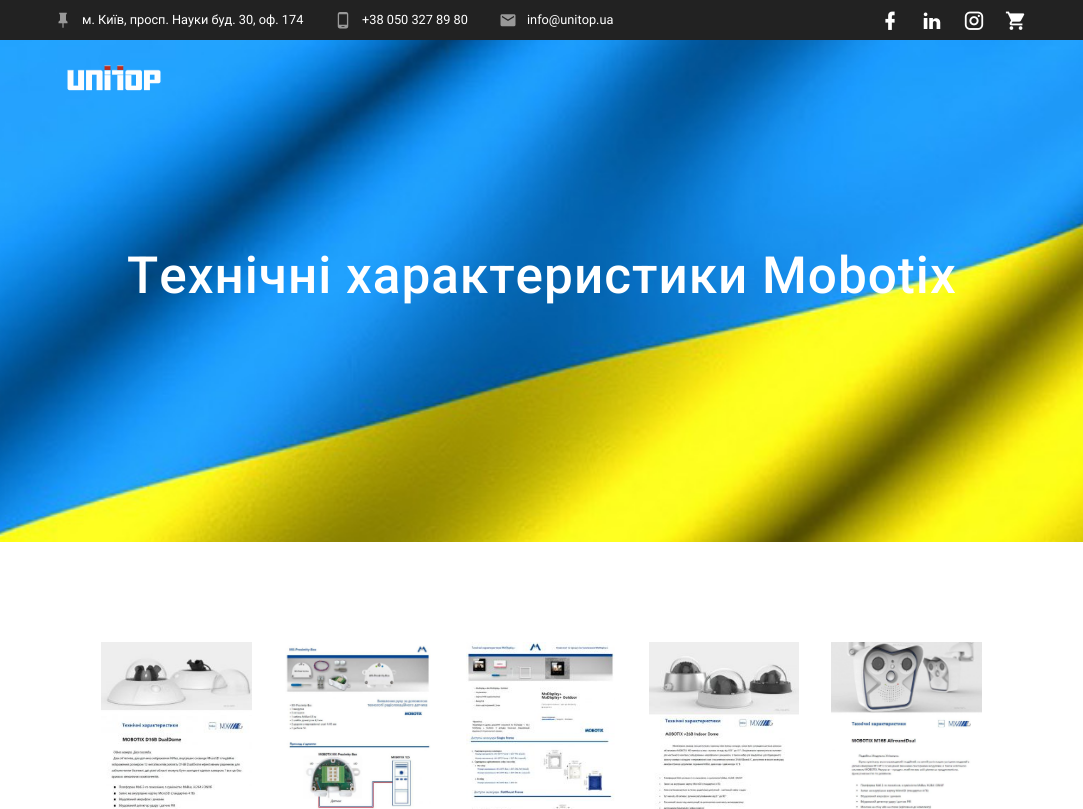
#include <cairo/cairo.h>
#include <math.h>
#include <stddef.h>

static cairo_t *cr;

static void use_color(int r, int g, int b) {
  cairo_set_source_rgb(cr, r / 255.0, g / 255.0, b / 255.0);
}

static void text(double x, double y, const char *s, const char *family, double size, int italic, int bold, int r, int g, int b) {
  cairo_select_font_face(cr, family, italic ? CAIRO_FONT_SLANT_ITALIC : CAIRO_FONT_SLANT_NORMAL,
    bold ? CAIRO_FONT_WEIGHT_BOLD : CAIRO_FONT_WEIGHT_NORMAL);
  cairo_set_font_size(cr, size);
  use_color(r, g, b);
  cairo_move_to(cr, x, y);
  cairo_show_text(cr, s);
}

static void spaced_text(double x, double y, const char *s, double letter, double word) {
  cairo_move_to(cr, x, y);
  while (*s) {
    char ch[5] = {0};
    int n = 0;
    do ch[n++] = *s++; while ((*s & 0xC0) == 0x80);
    cairo_show_text(cr, ch);
    cairo_rel_move_to(cr, letter + word * (*ch == ' '), 0);
  }
}

static void box(double x, double y, double w, double h, int r, int g, int b) {
  use_color(r, g, b);
  cairo_rectangle(cr, x, y, w, h);
  cairo_fill(cr);
}

static void picture(const char *path, double x, double y, double w, double h) {
  cairo_surface_t *image = cairo_image_surface_create_from_png(path);
  cairo_save(cr);
  cairo_set_source_surface(cr, image, x, y);
  cairo_rectangle(cr, x, y, w, h);
  cairo_fill(cr);
  cairo_restore(cr);
  cairo_surface_destroy(image);
}

static void draw(void) {
  use_color(255, 255, 255);
  cairo_paint(cr);
  box(0, 0, 1083, 40, 34, 34, 34);
  picture("img_01.png", 58, 12, 10, 16);
  picture("img_02.png", 337, 12, 12, 17);
  picture("img_03.png", 500, 14, 16, 13);
  picture("img_04.png", 885, 11, 10, 19);
  picture("img_05.png", 923, 12, 18, 17);
  picture("img_06.png", 964, 11, 20, 19);
  picture("img_07.png", 1005, 11, 20, 19);
  picture("img_09.png", 0, 40, 1083, 502);
  picture("img_08.png", 67, 65, 94, 26);
  picture("img_10.png", 101, 642, 151, 167);
  picture("img_11.png", 285, 645, 146, 164);
  picture("img_12.png", 466, 642, 149, 167);
  picture("img_13.png", 649, 642, 150, 167);
  picture("img_14.png", 831, 642, 151, 167);
  text(82, 24, "м. Київ, просп. Науки буд. 30, оф. 174", "Roboto", 12.75, 0, 0, 255, 255, 255);
  text(362, 24, "+38 050 327 89 80", "Roboto", 12.75, 0, 0, 255, 255, 255);
  text(527, 24, "info@unitop.ua", "Roboto", 12.75, 0, 0, 255, 255, 255);
  cairo_select_font_face(cr, "Roboto Medium", CAIRO_FONT_SLANT_NORMAL, CAIRO_FONT_WEIGHT_NORMAL);
  cairo_set_font_size(cr, 51.25);
  spaced_text(127, 293, "Технічні характеристики Mobotix", 1, 0);
}

int main(void) {
  cairo_surface_t *surface = cairo_image_surface_create(CAIRO_FORMAT_RGB24, 1083, 809);
  cr = cairo_create(surface);
  cairo_font_options_t *options = cairo_font_options_create();
  cairo_font_options_set_hint_metrics(options, CAIRO_HINT_METRICS_OFF);
  cairo_font_options_set_hint_style(options, CAIRO_HINT_STYLE_NONE);
  cairo_set_font_options(cr, options);
  cairo_set_miter_limit(cr, 4);
  draw();
  cairo_surface_write_to_png(surface, "out.png");
  cairo_font_options_destroy(options);
  cairo_destroy(cr);
  cairo_surface_destroy(surface);
  return 0;
}
